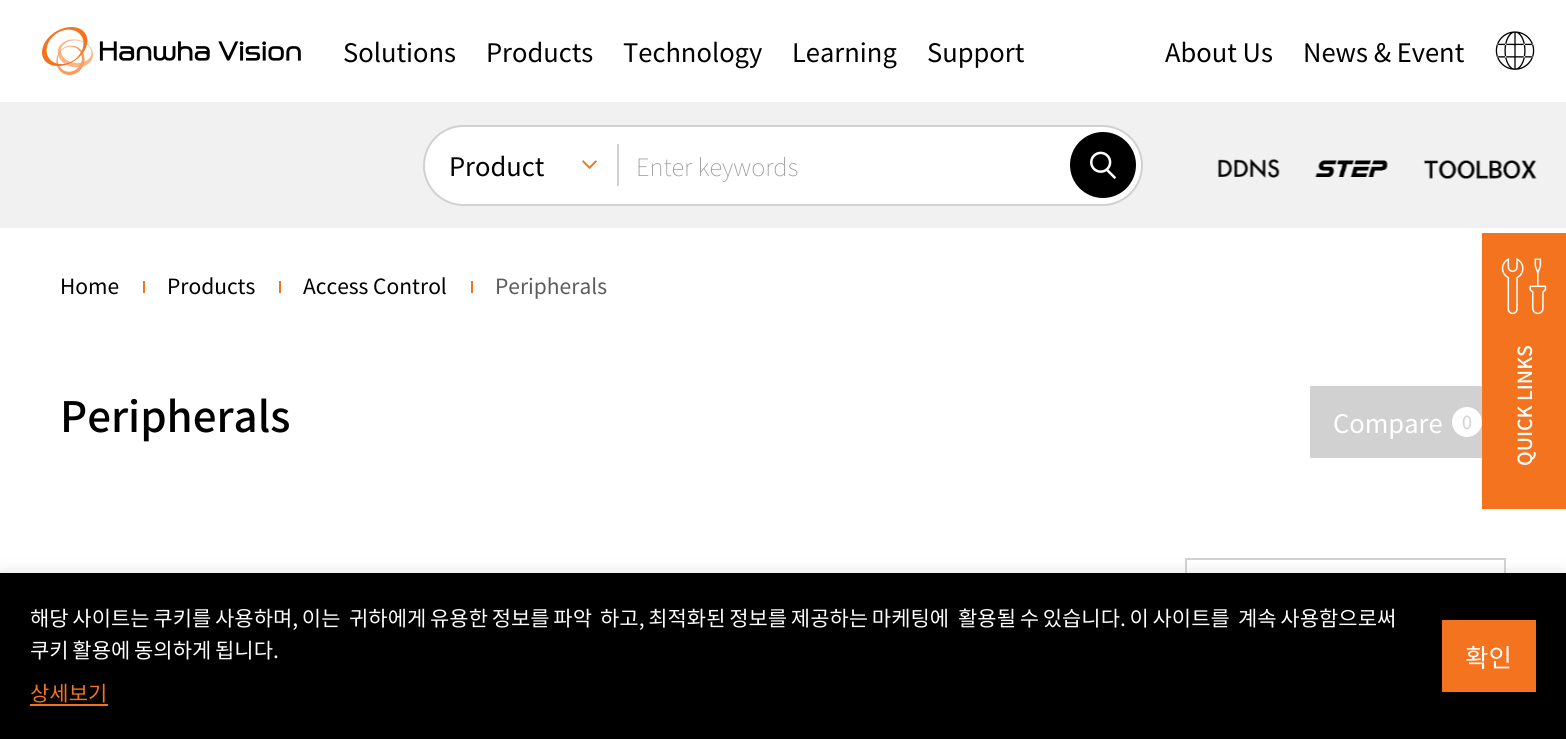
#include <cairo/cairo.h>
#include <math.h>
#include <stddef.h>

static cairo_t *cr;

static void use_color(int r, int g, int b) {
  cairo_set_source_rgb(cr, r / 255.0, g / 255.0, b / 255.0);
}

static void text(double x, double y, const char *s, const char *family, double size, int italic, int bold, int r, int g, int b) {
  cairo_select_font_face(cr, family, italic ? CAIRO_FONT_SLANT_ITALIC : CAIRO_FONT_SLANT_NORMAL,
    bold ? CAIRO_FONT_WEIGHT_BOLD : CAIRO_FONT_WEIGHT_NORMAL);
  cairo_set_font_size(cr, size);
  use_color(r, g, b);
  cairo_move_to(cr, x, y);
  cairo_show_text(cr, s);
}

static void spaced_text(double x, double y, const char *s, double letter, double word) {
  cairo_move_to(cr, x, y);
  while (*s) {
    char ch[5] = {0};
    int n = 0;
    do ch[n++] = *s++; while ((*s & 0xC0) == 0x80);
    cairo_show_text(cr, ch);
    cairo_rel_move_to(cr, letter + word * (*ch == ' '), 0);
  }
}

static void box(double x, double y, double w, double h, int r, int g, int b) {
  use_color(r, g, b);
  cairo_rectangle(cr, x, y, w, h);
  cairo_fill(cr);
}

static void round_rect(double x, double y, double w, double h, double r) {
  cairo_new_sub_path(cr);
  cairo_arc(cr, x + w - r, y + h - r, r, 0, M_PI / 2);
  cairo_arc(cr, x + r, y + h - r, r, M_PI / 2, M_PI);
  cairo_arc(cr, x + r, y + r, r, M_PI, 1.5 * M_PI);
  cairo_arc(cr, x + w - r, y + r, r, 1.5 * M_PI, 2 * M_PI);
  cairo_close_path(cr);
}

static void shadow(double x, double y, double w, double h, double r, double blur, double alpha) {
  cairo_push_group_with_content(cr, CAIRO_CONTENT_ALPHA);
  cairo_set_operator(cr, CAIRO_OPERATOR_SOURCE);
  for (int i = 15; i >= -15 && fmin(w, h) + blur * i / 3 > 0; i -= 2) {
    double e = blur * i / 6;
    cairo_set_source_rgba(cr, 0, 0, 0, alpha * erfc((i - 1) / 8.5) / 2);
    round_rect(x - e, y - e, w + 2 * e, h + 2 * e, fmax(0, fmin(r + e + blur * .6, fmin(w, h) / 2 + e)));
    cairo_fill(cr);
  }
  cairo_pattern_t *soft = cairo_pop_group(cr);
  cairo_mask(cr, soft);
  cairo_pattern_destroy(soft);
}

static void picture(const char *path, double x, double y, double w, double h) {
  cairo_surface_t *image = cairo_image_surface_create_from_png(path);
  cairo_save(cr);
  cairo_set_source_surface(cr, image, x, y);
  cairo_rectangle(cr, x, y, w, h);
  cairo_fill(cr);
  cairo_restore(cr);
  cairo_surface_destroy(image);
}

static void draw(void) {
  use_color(255, 255, 255);
  cairo_paint(cr);
  picture("img_01.png", 42, 27, 259, 48);
  picture("img_02.png", 1495, 31, 40, 39);
  box(0, 102, 1566, 126, 241, 241, 241);
  use_color(255, 255, 255);
  round_rect(424, 126, 718, 79, 39.5);
  cairo_fill_preserve(cr);
  use_color(209, 209, 209);
  cairo_stroke(cr);
  picture("img_03.png", 582, 160, 15, 9);
  box(617, 144, 2, 42, 209, 209, 209);
  use_color(0, 0, 0);
  cairo_arc(cr, 1103, 165, 33, 0, 2 * M_PI);
  cairo_fill(cr);
  picture("img_04.png", 1090, 151, 27, 28);
  picture("img_05.png", 1217, 159, 63, 19);
  picture("img_06.png", 1315, 160, 73, 17);
  picture("img_07.png", 1423, 160, 114, 19);
  box(143, 281, 2, 12, 244, 115, 31);
  box(279, 281, 2, 12, 244, 115, 31);
  box(471, 281, 2, 12, 244, 115, 31);
  box(1310, 386, 172, 72, 209, 209, 209);
  use_color(255, 255, 255);
  cairo_arc(cr, 1467, 422, 15, 0, 2 * M_PI);
  cairo_fill(cr);
  cairo_rectangle(cr, 1186, 559, 319, 57);
  use_color(209, 209, 209);
  cairo_stroke(cr);
  box(1482, 233, 84, 276, 244, 115, 31);
  picture("img_08.png", 1501, 258, 46, 57);
  use_color(172, 171, 171);
  shadow(0, 572, 1566, 166, 0, 7.5, 0.3);
  box(0, 573, 1566, 166, 0, 0, 0);
  box(30, 704, 78, 2, 244, 115, 31);
  box(1442, 620, 94, 72, 244, 115, 31);
  text(343, 62, "Solutions", "Noto Sans KR", 25.5, 0, 0, 0, 0, 0);
  text(486, 62, "Products", "Noto Sans KR", 25.5, 0, 0, 0, 0, 0);
  text(623, 62, "Technology", "Noto Sans KR", 25.5, 0, 0, 0, 0, 0);
  text(792, 62, "Learning", "Noto Sans KR", 25.5, 0, 0, 0, 0, 0);
  text(927, 62, "Support", "Noto Sans KR", 25.5, 0, 0, 0, 0, 0);
  text(1165, 62, "About Us", "Noto Sans KR", 25.5, 0, 0, 0, 0, 0);
  text(1303, 62, "News & Event", "Noto Sans KR", 25.5, 0, 0, 0, 0, 0);
  text(449, 176, "Product", "Noto Sans KR", 25.5, 0, 0, 0, 0, 0);
  text(636, 176, "Enter keywords", "Noto Sans KR Thin", 24, 0, 0, 153, 153, 153);
  text(60, 294, "Home", "Noto Sans KR", 21, 0, 0, 0, 0, 0);
  text(167, 294, "Products", "Noto Sans KR", 21, 0, 0, 0, 0, 0);
  text(303, 294, "Access Control", "Noto Sans KR", 21, 0, 0, 0, 0, 0);
  text(495, 294, "Peripherals", "Noto Sans KR", 21, 0, 0, 92, 92, 92);
  text(60, 432, "Peripherals", "Noto Sans KR Medium", 42, 0, 0, 0, 0, 0);
  text(1333, 433, "Compare", "Noto Sans KR", 25.5, 0, 0, 255, 255, 255);
  text(1462, 429, "0", "Noto Sans KR", 18, 0, 0, 209, 209, 209);
  cairo_save(cr);
  cairo_translate(cr, 1532, 466);
  cairo_rotate(cr, -90 * M_PI / 180);
  text(0, 0, "QUICK LINKS", "Noto Sans KR Medium", 19.5, 0, 0, 255, 255, 255);
  cairo_restore(cr);
  cairo_select_font_face(cr, "Noto Sans KR", CAIRO_FONT_SLANT_NORMAL, CAIRO_FONT_WEIGHT_NORMAL);
  cairo_set_font_size(cr, 21);
  use_color(255, 255, 255);
  spaced_text(30, 626, "해당 사이트는 쿠키를 사용하며, 이는", 0, -1);
  spaced_text(349, 626, "귀하에게 유용한 정보를 파악", 0, -1);
  spaced_text(600, 626, "하고, 최적화된 정보를 제공하는 마케팅에", 0, -1);
  spaced_text(958, 626, "활용될 수 있습니다. 이 사이트를", 0, -1);
  spaced_text(1238, 626, "계속 사용함으로써", 0, -1);
  spaced_text(30, 658, "쿠키 활용에 동의하게 됩니다.", 0, -1);
  text(30, 701, "상세보기", "Noto Sans KR", 21, 0, 0, 244, 115, 31);
  text(1465, 667, "확인", "Noto Sans KR", 25.5, 0, 0, 255, 255, 255);
}

int main(void) {
  cairo_surface_t *surface = cairo_image_surface_create(CAIRO_FORMAT_RGB24, 1566, 739);
  cr = cairo_create(surface);
  cairo_font_options_t *options = cairo_font_options_create();
  cairo_font_options_set_hint_metrics(options, CAIRO_HINT_METRICS_OFF);
  cairo_font_options_set_hint_style(options, CAIRO_HINT_STYLE_NONE);
  cairo_set_font_options(cr, options);
  cairo_set_miter_limit(cr, 4);
  draw();
  cairo_surface_write_to_png(surface, "out.png");
  cairo_font_options_destroy(options);
  cairo_destroy(cr);
  cairo_surface_destroy(surface);
  return 0;
}
